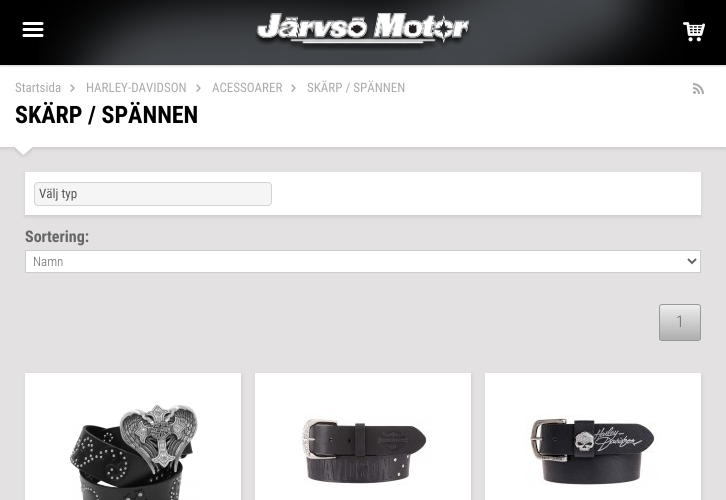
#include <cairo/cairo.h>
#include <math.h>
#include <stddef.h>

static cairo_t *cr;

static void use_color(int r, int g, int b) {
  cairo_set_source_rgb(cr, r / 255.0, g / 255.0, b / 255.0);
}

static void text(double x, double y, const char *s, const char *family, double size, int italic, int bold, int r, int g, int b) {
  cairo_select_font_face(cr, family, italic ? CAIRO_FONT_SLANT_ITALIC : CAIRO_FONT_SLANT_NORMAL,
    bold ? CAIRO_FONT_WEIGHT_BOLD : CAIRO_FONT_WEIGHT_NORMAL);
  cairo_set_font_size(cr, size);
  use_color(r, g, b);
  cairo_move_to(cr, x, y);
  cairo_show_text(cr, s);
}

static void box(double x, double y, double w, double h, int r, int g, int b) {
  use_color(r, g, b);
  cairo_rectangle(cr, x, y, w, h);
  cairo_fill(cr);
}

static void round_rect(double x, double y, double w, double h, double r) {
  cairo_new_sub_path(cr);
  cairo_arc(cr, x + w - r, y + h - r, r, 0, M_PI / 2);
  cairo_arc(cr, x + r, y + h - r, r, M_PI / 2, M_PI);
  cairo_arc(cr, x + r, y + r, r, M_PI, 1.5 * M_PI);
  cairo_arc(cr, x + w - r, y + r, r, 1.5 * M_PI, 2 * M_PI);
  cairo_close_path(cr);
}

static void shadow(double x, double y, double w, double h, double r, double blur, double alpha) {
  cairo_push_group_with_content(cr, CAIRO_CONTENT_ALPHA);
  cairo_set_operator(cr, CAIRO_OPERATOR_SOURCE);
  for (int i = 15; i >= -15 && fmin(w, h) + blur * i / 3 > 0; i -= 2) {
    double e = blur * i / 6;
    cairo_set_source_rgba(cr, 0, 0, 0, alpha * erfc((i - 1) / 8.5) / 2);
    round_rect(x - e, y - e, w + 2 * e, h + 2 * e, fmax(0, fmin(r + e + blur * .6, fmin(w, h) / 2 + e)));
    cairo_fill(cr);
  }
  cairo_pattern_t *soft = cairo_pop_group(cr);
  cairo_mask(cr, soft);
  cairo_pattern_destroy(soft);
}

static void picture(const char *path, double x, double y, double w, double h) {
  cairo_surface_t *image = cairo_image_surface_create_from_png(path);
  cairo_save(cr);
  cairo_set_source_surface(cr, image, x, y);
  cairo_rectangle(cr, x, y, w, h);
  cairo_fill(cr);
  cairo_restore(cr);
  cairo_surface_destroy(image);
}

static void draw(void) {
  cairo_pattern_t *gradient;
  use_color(227, 225, 226);
  cairo_paint(cr);
  use_color(0, 0, 0);
  shadow(0, 67, 726, 82, 0, 2, 0.1);
  box(0, 65, 726, 82, 255, 255, 255);
  use_color(0, 0, 0);
  shadow(0, 1, 726, 65, 0, 1, 0.2);
  box(0, 0, 726, 65, 0, 0, 0);
  picture("img_01.png", 39, 0, 645, 65);
  picture("img_02.png", 22, 22, 22, 15);
  picture("img_03.png", 255, 13, 216, 38);
  picture("img_04.png", 683, 22, 22, 20);
  picture("img_05.png", 70, 84, 5, 8);
  picture("img_05.png", 196, 84, 5, 8);
  picture("img_05.png", 291, 84, 5, 8);
  picture("img_06.png", 693, 83, 11, 11);
  picture("img_07.png", 15, 147, 17, 11);
  use_color(0, 0, 0);
  shadow(25, 174, 676, 43, 0, 2, 0.1);
  box(25, 172, 676, 43, 255, 255, 255);
  use_color(245, 245, 245);
  round_rect(34.5, 182.5, 237, 23, 3.5);
  cairo_fill_preserve(cr);
  use_color(211, 211, 211);
  cairo_set_line_width(cr, 1);
  cairo_stroke(cr);
  use_color(255, 255, 255);
  cairo_rectangle(cr, 25.5, 250.5, 675, 22);
  cairo_fill_preserve(cr);
  use_color(204, 204, 204);
  cairo_stroke(cr);
  cairo_new_path(cr);
  cairo_move_to(cr, 688, 259);
  cairo_line_to(cr, 692, 263);
  cairo_line_to(cr, 696, 259);
  use_color(102, 102, 102);
  cairo_set_line_width(cr, 2);
  cairo_stroke(cr);
  cairo_save(cr);
  round_rect(659, 304, 42, 37, 3);
  cairo_clip(cr);
  gradient = cairo_pattern_create_linear(680, 305, 680, 340);
  cairo_pattern_add_color_stop_rgba(gradient, 0, 0.929, 0.929, 0.929, 1);
  cairo_pattern_add_color_stop_rgba(gradient, 1, 0.682, 0.682, 0.682, 1);
  cairo_set_source(cr, gradient);
  cairo_pattern_destroy(gradient);
  cairo_rectangle(cr, 659, 305, 42, 35);
  cairo_fill(cr);
  cairo_restore(cr);
  round_rect(659.5, 304.5, 41, 36, 2.5);
  use_color(153, 153, 153);
  cairo_set_line_width(cr, 1);
  cairo_stroke(cr);
  use_color(0, 0, 0);
  shadow(26, 375, 216, 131, 0, 2, 0.1);
  box(25, 373, 216, 127, 255, 255, 255);
  picture("img_08.png", 69, 404, 129, 96);
  use_color(0, 0, 0);
  shadow(256, 375, 216, 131, 0, 2, 0.1);
  box(255, 373, 216, 127, 255, 255, 255);
  picture("img_09.png", 299, 414, 132, 72);
  use_color(0, 0, 0);
  shadow(486, 375, 216, 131, 0, 2, 0.1);
  box(485, 373, 216, 127, 255, 255, 255);
  picture("img_10.png", 525, 414, 135, 72);
  text(15, 92, "Startsida", "Roboto Condensed", 13, 0, 0, 170, 170, 170);
  text(86, 92, "HARLEY-DAVIDSON", "Roboto Condensed", 13, 0, 0, 170, 170, 170);
  text(212, 92, "ACESSOARER", "Roboto Condensed", 13, 0, 0, 170, 170, 170);
  text(307, 92, "SKÄRP / SPÄNNEN", "Roboto Condensed", 13, 0, 0, 170, 170, 170);
  text(15, 123, "SKÄRP / SPÄNNEN", "Roboto Condensed", 24, 0, 1, 0, 0, 0);
  text(39, 198, "Välj typ", "Roboto Condensed", 13, 0, 0, 85, 85, 85);
  text(25, 242, "Sortering:", "Roboto Condensed", 16, 0, 1, 102, 102, 102);
  text(33, 266, "Namn", "Roboto Condensed Light", 13, 0, 0, 102, 102, 102);
  text(676, 327, "1", "Roboto Condensed Light", 16, 0, 0, 102, 102, 102);
}

int main(void) {
  cairo_surface_t *surface = cairo_image_surface_create(CAIRO_FORMAT_RGB24, 726, 500);
  cr = cairo_create(surface);
  cairo_font_options_t *options = cairo_font_options_create();
  cairo_font_options_set_hint_metrics(options, CAIRO_HINT_METRICS_OFF);
  cairo_font_options_set_hint_style(options, CAIRO_HINT_STYLE_NONE);
  cairo_set_font_options(cr, options);
  cairo_set_miter_limit(cr, 4);
  draw();
  cairo_surface_write_to_png(surface, "out.png");
  cairo_font_options_destroy(options);
  cairo_destroy(cr);
  cairo_surface_destroy(surface);
  return 0;
}
